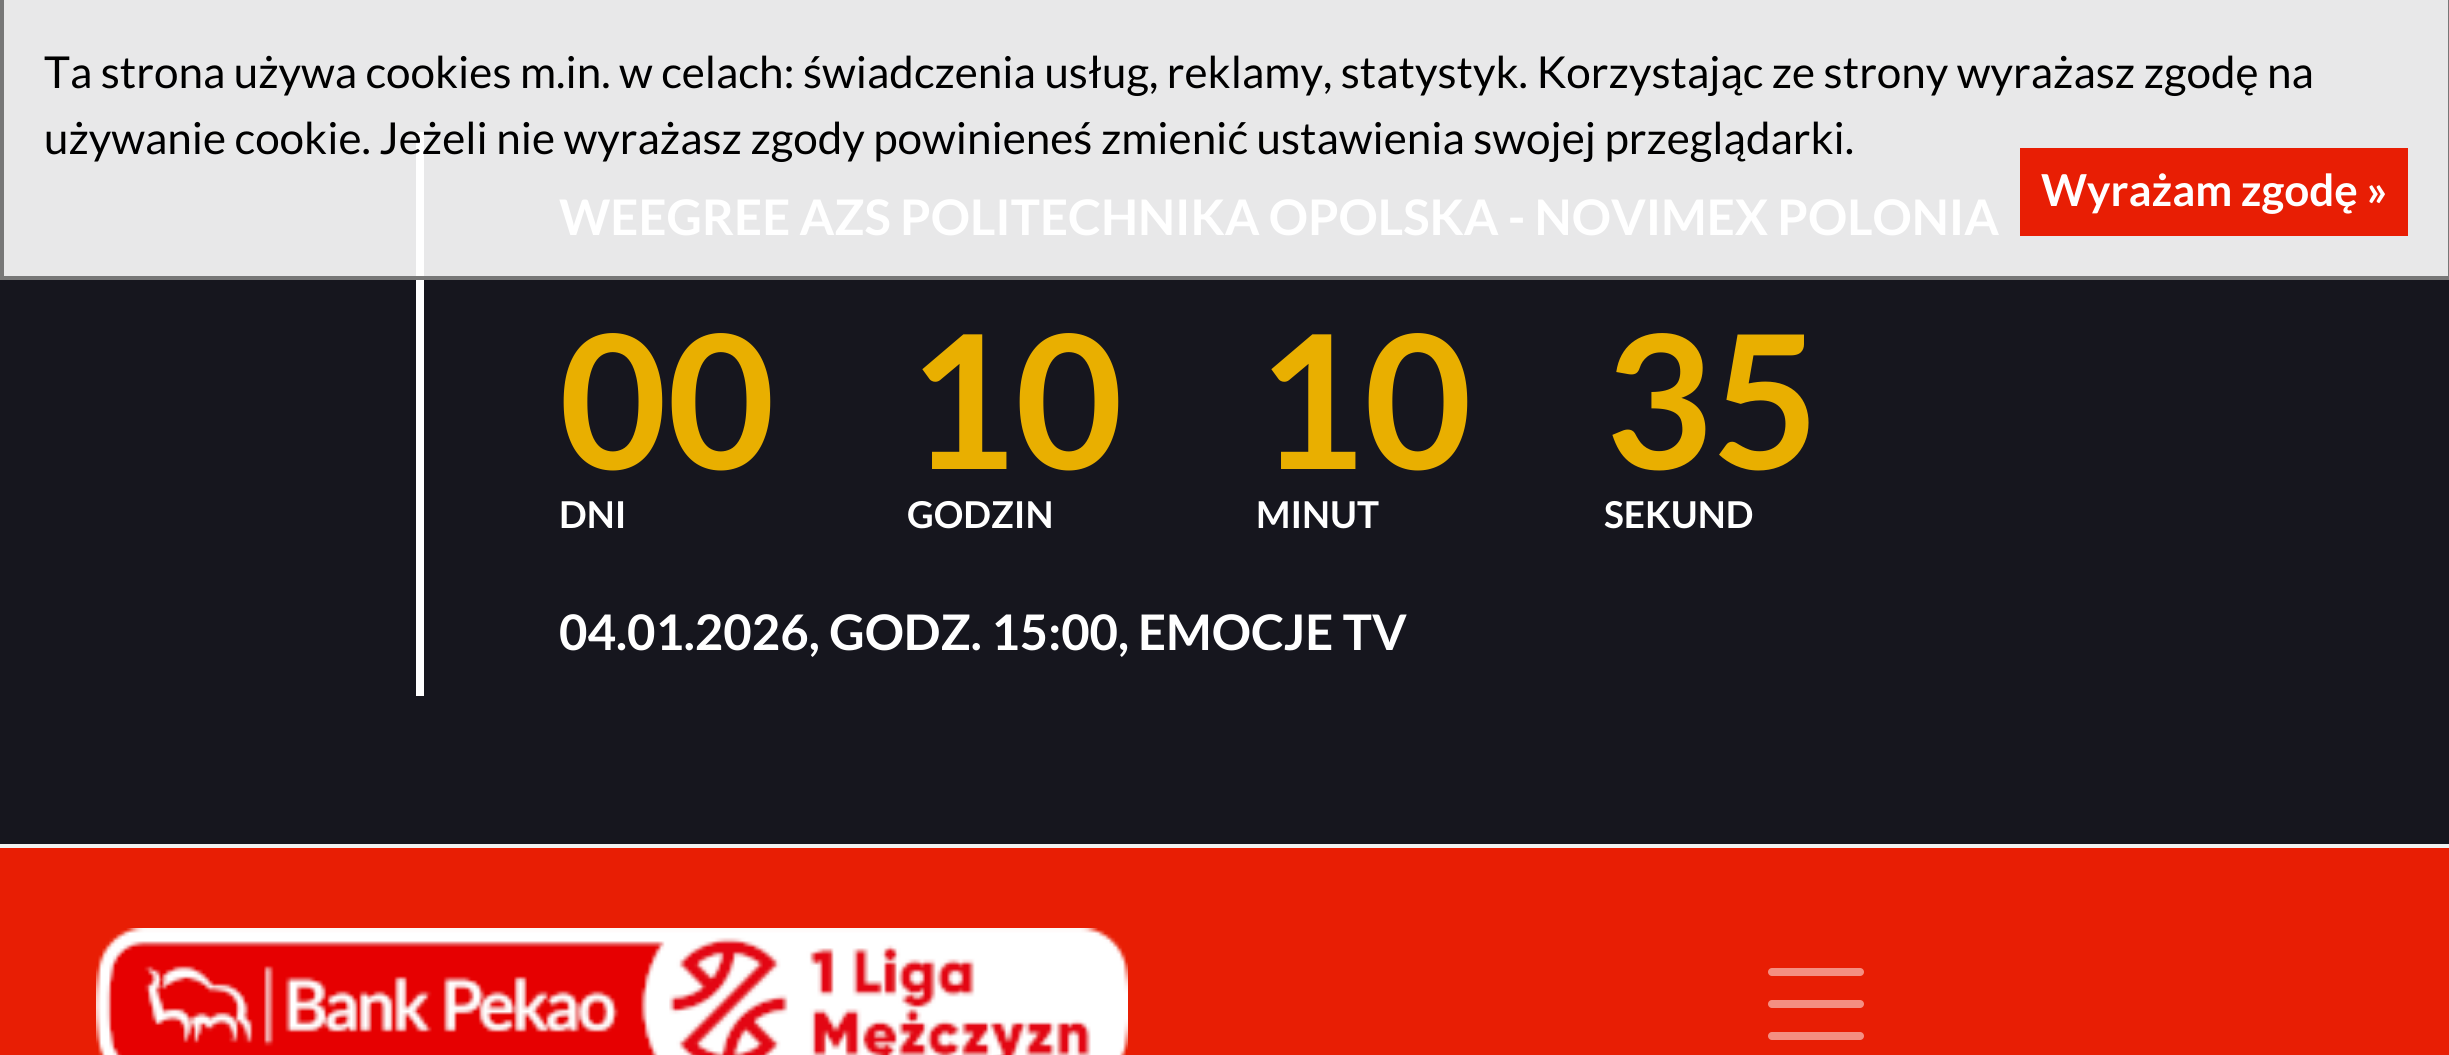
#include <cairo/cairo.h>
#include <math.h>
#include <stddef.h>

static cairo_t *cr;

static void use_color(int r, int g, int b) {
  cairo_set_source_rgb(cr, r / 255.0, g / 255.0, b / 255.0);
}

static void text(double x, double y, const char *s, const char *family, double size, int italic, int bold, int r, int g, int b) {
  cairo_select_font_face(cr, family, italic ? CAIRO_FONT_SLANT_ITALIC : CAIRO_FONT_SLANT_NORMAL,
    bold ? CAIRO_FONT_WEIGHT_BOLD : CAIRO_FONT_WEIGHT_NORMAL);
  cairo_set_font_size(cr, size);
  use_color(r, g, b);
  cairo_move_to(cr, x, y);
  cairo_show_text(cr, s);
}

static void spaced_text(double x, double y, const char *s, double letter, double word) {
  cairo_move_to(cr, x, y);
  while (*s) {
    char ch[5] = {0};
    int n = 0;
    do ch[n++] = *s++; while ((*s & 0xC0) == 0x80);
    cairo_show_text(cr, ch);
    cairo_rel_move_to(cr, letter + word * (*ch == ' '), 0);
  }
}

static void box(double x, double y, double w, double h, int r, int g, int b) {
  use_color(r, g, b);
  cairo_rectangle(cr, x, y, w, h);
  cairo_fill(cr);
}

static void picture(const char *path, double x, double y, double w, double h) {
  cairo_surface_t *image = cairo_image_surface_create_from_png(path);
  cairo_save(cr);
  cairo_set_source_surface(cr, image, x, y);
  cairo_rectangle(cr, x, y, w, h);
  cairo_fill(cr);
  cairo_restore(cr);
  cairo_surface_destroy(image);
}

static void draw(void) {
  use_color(240, 240, 240);
  cairo_paint(cr);
  box(4, 0, 2444, 276, 232, 232, 233);
  box(0, 280, 2449, 564, 22, 22, 30);
  box(416, 132, 8, 564, 255, 255, 255);
  cairo_rectangle(cr, 2, -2, 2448, 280);
  use_color(119, 119, 119);
  cairo_set_line_width(cr, 4);
  cairo_stroke(cr);
  box(2020, 148, 388, 88, 232, 30, 4);
  box(0, 848, 2449, 207, 232, 30, 4);
  picture("img_01.png", 96, 928, 1032, 127);
  cairo_new_path(cr);
  cairo_move_to(cr, 1772, 972);
  cairo_line_to(cr, 1860, 972);
  cairo_move_to(cr, 1772, 1004);
  cairo_line_to(cr, 1860, 1004);
  cairo_move_to(cr, 1772, 1036);
  cairo_line_to(cr, 1860, 1036);
  use_color(244, 143, 130);
  cairo_set_line_width(cr, 8);
  cairo_set_line_cap(cr, CAIRO_LINE_CAP_ROUND);
  cairo_stroke(cr);
  text(44, 88, "Ta strona używa cookies m.in. w celach: świadczenia usług, reklamy, statystyk. Korzystając ze strony wyrażasz zgodę na", "Lato", 44, 0, 0, 0, 0, 0);
  text(44, 154, "używanie cookie. Jeżeli nie wyrażasz zgody powinieneś zmienić ustawienia swojej przeglądarki.", "Lato", 44, 0, 0, 0, 0, 0);
  text(2041, 206, "Wyrażam zgodę »", "Lato", 44, 0, 1, 255, 255, 255);
  cairo_set_font_size(cr, 49.05);
  spaced_text(559, 235, "WEEGREE AZS POLITECHNIKA OPOLSKA - NOVIMEX POLONIA", 0, -0.25);
  text(559, 469, "00", "Lato", 186, 0, 1, 233, 175, 0);
  text(559, 528, "DNI", "Lato", 37, 0, 1, 255, 255, 255);
  text(907, 469, "10", "Lato", 186, 0, 1, 233, 175, 0);
  text(907, 528, "GODZIN", "Lato", 37, 0, 1, 255, 255, 255);
  text(1256, 469, "10", "Lato", 186, 0, 1, 233, 175, 0);
  text(1256, 528, "MINUT", "Lato", 37, 0, 1, 255, 255, 255);
  text(1604, 469, "35", "Lato", 186, 0, 1, 233, 175, 0);
  text(1604, 528, "SEKUND", "Lato", 37, 0, 1, 255, 255, 255);
  text(559, 650, "04.01.2026, GODZ. 15:00,", "Lato", 49.05, 0, 1, 255, 255, 255);
  text(1138, 650, "EMOCJE TV", "Lato", 49.05, 0, 1, 255, 255, 255);
}

int main(void) {
  cairo_surface_t *surface = cairo_image_surface_create(CAIRO_FORMAT_RGB24, 2449, 1055);
  cr = cairo_create(surface);
  cairo_font_options_t *options = cairo_font_options_create();
  cairo_font_options_set_hint_metrics(options, CAIRO_HINT_METRICS_OFF);
  cairo_font_options_set_hint_style(options, CAIRO_HINT_STYLE_NONE);
  cairo_set_font_options(cr, options);
  cairo_set_miter_limit(cr, 4);
  draw();
  cairo_surface_write_to_png(surface, "out.png");
  cairo_font_options_destroy(options);
  cairo_destroy(cr);
  cairo_surface_destroy(surface);
  return 0;
}
